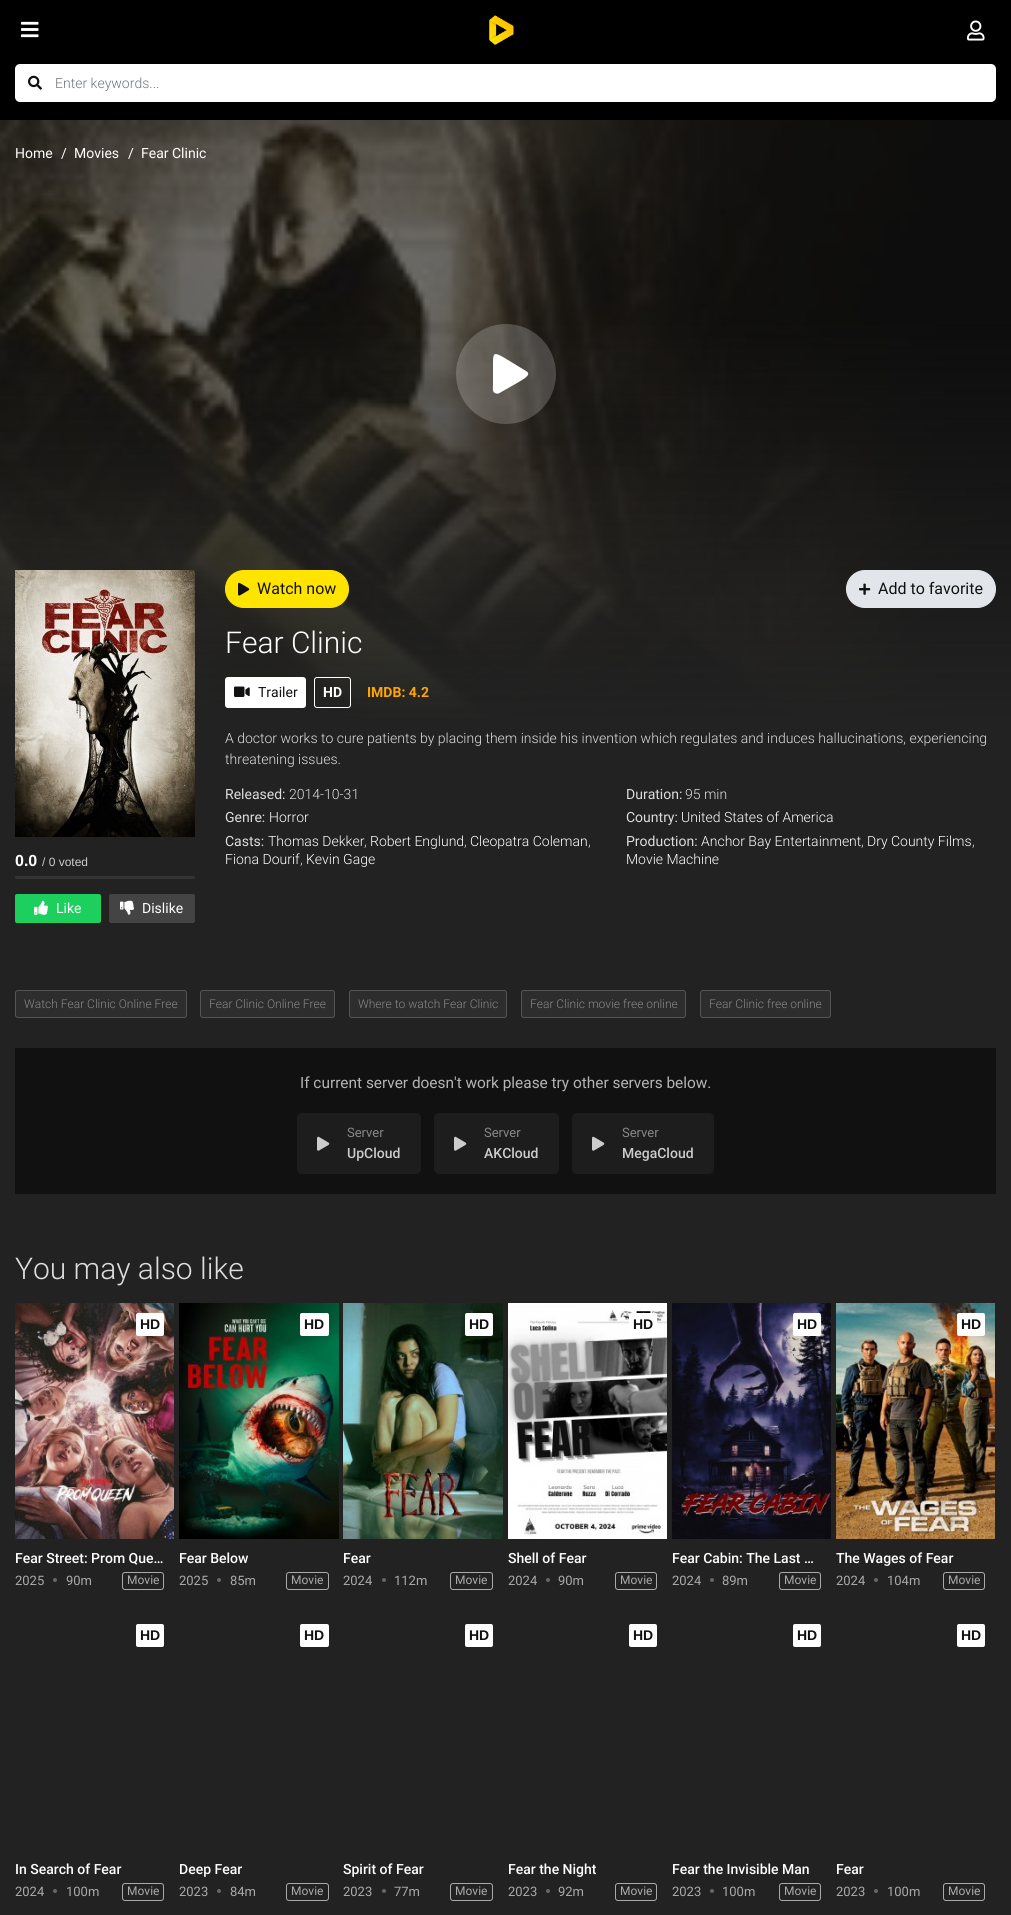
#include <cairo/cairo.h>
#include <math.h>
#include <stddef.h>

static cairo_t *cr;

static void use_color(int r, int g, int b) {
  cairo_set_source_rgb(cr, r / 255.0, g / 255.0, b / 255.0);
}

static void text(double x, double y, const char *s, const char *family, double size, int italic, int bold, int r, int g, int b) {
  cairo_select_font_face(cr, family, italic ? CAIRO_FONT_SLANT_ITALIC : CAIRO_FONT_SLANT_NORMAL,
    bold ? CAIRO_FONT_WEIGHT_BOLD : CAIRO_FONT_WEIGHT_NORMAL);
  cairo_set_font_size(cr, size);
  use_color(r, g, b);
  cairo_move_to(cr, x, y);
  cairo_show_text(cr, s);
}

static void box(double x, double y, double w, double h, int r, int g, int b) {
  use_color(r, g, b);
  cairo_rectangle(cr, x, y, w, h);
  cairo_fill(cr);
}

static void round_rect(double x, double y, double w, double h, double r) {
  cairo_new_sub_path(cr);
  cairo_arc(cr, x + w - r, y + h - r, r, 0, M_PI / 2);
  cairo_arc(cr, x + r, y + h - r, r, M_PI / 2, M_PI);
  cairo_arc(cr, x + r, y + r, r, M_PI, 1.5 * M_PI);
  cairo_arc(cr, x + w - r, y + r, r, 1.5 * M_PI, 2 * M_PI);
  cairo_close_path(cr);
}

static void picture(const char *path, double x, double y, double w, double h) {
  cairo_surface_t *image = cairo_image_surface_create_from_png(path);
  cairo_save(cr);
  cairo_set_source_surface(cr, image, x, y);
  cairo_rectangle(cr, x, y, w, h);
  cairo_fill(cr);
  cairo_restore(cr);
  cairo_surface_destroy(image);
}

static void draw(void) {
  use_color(34, 34, 34);
  cairo_paint(cr);
  box(0, 0, 1011, 120, 0, 0, 0);
  picture("img_01.png", 21, 21, 18, 17);
  picture("img_02.png", 489, 15, 25, 30);
  picture("img_03.png", 967, 20, 18, 21);
  use_color(255, 255, 255);
  round_rect(15, 64, 981, 38, 5);
  cairo_fill(cr);
  picture("img_04.png", 28, 75, 14, 15);
  picture("img_05.png", 0, 120, 1011, 600);
  cairo_set_source_rgba(cr, 1, 1, 1, 0.2);
  cairo_arc(cr, 506, 374, 50, 0, 2 * M_PI);
  cairo_fill(cr);
  use_color(255, 255, 255);
  cairo_new_path(cr);
  cairo_move_to(cr, 526, 371);
  cairo_curve_to(cr, 534, 375, 518, 382, 517, 383);
  cairo_line_to(cr, 503, 391);
  cairo_curve_to(cr, 501, 392, 498, 395, 495, 393);
  cairo_curve_to(cr, 492, 392, 493, 387, 493, 385);
  cairo_line_to(cr, 493, 363);
  cairo_curve_to(cr, 493, 353, 494, 352, 503, 357);
  cairo_close_path(cr);
  cairo_fill(cr);
  use_color(255, 228, 0);
  round_rect(225.5, 570.5, 123, 37, 18.5);
  cairo_fill_preserve(cr);
  cairo_set_line_width(cr, 1);
  cairo_stroke(cr);
  picture("img_06.png", 238, 582, 12, 14);
  use_color(226, 230, 234);
  round_rect(846.5, 570.5, 149, 37, 18.5);
  cairo_fill_preserve(cr);
  cairo_stroke(cr);
  picture("img_07.png", 859, 583, 12, 12);
  use_color(255, 255, 255);
  round_rect(225, 677, 81, 31, 3);
  cairo_fill(cr);
  picture("img_08.png", 234, 686, 16, 11);
  round_rect(314.5, 677.5, 36, 30, 2.5);
  cairo_stroke(cr);
  picture("img_09.png", 15, 570, 180, 267);
  use_color(51, 51, 51);
  round_rect(15, 876, 180, 3, 1.5);
  cairo_fill(cr);
  use_color(29, 208, 93);
  round_rect(15, 894, 86, 29, 2);
  cairo_fill(cr);
  picture("img_10.png", 34, 900, 14, 15);
  use_color(68, 68, 68);
  round_rect(109, 894, 86, 29, 2);
  cairo_fill(cr);
  picture("img_11.png", 120, 900, 14, 15);
  use_color(45, 45, 45);
  round_rect(15.5, 990.5, 171, 27, 2.5);
  cairo_fill_preserve(cr);
  use_color(85, 85, 85);
  cairo_stroke(cr);
  use_color(45, 45, 45);
  round_rect(200.5, 990.5, 134, 27, 2.5);
  cairo_fill_preserve(cr);
  use_color(85, 85, 85);
  cairo_stroke(cr);
  use_color(45, 45, 45);
  round_rect(349.5, 990.5, 157, 27, 2.5);
  cairo_fill_preserve(cr);
  use_color(85, 85, 85);
  cairo_stroke(cr);
  use_color(45, 45, 45);
  round_rect(521.5, 990.5, 164, 27, 2.5);
  cairo_fill_preserve(cr);
  use_color(85, 85, 85);
  cairo_stroke(cr);
  use_color(45, 45, 45);
  round_rect(700.5, 990.5, 130, 27, 2.5);
  cairo_fill_preserve(cr);
  use_color(85, 85, 85);
  cairo_stroke(cr);
  box(15, 1048, 981, 146, 17, 17, 17);
  use_color(29, 29, 29);
  round_rect(297, 1113, 124, 61, 5);
  cairo_fill(cr);
  picture("img_12.png", 317, 1136, 13, 15);
  round_rect(434, 1113, 125, 61, 5);
  cairo_fill(cr);
  picture("img_12.png", 454, 1136, 13, 15);
  round_rect(572, 1113, 142, 61, 5);
  cairo_fill(cr);
  picture("img_12.png", 592, 1136, 13, 15);
  picture("img_13.png", 15, 1303, 159, 236);
  use_color(255, 255, 255);
  round_rect(136, 1313, 28, 23, 2);
  cairo_fill(cr);
  use_color(102, 102, 102);
  cairo_arc(cr, 55, 1580, 2, 0, 2 * M_PI);
  cairo_fill(cr);
  round_rect(122.5, 1572.5, 41, 17, 2.5);
  use_color(170, 170, 170);
  cairo_stroke(cr);
  picture("img_14.png", 179, 1303, 160, 236);
  use_color(255, 255, 255);
  round_rect(300, 1313, 29, 23, 2);
  cairo_fill(cr);
  use_color(102, 102, 102);
  cairo_arc(cr, 219, 1580, 2, 0, 2 * M_PI);
  cairo_fill(cr);
  round_rect(286.5, 1572.5, 42, 17, 2.5);
  use_color(170, 170, 170);
  cairo_stroke(cr);
  picture("img_15.png", 343, 1303, 160, 236);
  use_color(255, 255, 255);
  round_rect(465, 1313, 28, 23, 2);
  cairo_fill(cr);
  use_color(102, 102, 102);
  cairo_arc(cr, 384, 1580, 2, 0, 2 * M_PI);
  cairo_fill(cr);
  round_rect(450.5, 1572.5, 42, 17, 2.5);
  use_color(170, 170, 170);
  cairo_stroke(cr);
  picture("img_16.png", 508, 1303, 159, 236);
  use_color(255, 255, 255);
  round_rect(629, 1313, 28, 23, 2);
  cairo_fill(cr);
  use_color(102, 102, 102);
  cairo_arc(cr, 548, 1580, 2, 0, 2 * M_PI);
  cairo_fill(cr);
  round_rect(615.5, 1572.5, 41, 17, 2.5);
  use_color(170, 170, 170);
  cairo_stroke(cr);
  picture("img_17.png", 672, 1303, 159, 236);
  use_color(255, 255, 255);
  round_rect(793, 1313, 28, 23, 2);
  cairo_fill(cr);
  use_color(102, 102, 102);
  cairo_arc(cr, 712, 1580, 2, 0, 2 * M_PI);
  cairo_fill(cr);
  round_rect(779.5, 1572.5, 41, 17, 2.5);
  use_color(170, 170, 170);
  cairo_stroke(cr);
  picture("img_18.png", 836, 1303, 159, 236);
  use_color(255, 255, 255);
  round_rect(957, 1313, 28, 23, 2);
  cairo_fill(cr);
  use_color(102, 102, 102);
  cairo_arc(cr, 876, 1580, 2, 0, 2 * M_PI);
  cairo_fill(cr);
  round_rect(943.5, 1572.5, 41, 17, 2.5);
  use_color(170, 170, 170);
  cairo_stroke(cr);
  use_color(255, 255, 255);
  round_rect(136, 1624, 28, 23, 2);
  cairo_fill(cr);
  use_color(102, 102, 102);
  cairo_arc(cr, 55, 1891, 2, 0, 2 * M_PI);
  cairo_fill(cr);
  round_rect(122.5, 1883.5, 41, 17, 2.5);
  use_color(170, 170, 170);
  cairo_stroke(cr);
  use_color(255, 255, 255);
  round_rect(300, 1624, 29, 23, 2);
  cairo_fill(cr);
  use_color(102, 102, 102);
  cairo_arc(cr, 219, 1891, 2, 0, 2 * M_PI);
  cairo_fill(cr);
  round_rect(286.5, 1883.5, 42, 17, 2.5);
  use_color(170, 170, 170);
  cairo_stroke(cr);
  use_color(255, 255, 255);
  round_rect(465, 1624, 28, 23, 2);
  cairo_fill(cr);
  use_color(102, 102, 102);
  cairo_arc(cr, 384, 1891, 2, 0, 2 * M_PI);
  cairo_fill(cr);
  round_rect(450.5, 1883.5, 42, 17, 2.5);
  use_color(170, 170, 170);
  cairo_stroke(cr);
  use_color(255, 255, 255);
  round_rect(629, 1624, 28, 23, 2);
  cairo_fill(cr);
  use_color(102, 102, 102);
  cairo_arc(cr, 548, 1891, 2, 0, 2 * M_PI);
  cairo_fill(cr);
  round_rect(615.5, 1883.5, 41, 17, 2.5);
  use_color(170, 170, 170);
  cairo_stroke(cr);
  use_color(255, 255, 255);
  round_rect(793, 1624, 28, 23, 2);
  cairo_fill(cr);
  use_color(102, 102, 102);
  cairo_arc(cr, 712, 1891, 2, 0, 2 * M_PI);
  cairo_fill(cr);
  round_rect(779.5, 1883.5, 41, 17, 2.5);
  use_color(170, 170, 170);
  cairo_stroke(cr);
  use_color(255, 255, 255);
  round_rect(957, 1624, 28, 23, 2);
  cairo_fill(cr);
  use_color(102, 102, 102);
  cairo_arc(cr, 876, 1891, 2, 0, 2 * M_PI);
  cairo_fill(cr);
  round_rect(943.5, 1883.5, 41, 17, 2.5);
  use_color(170, 170, 170);
  cairo_stroke(cr);
  text(55, 88, "Enter keywords...", "Roboto Light", 14, 0, 0, 108, 117, 125);
  text(15, 158, "Home", "Roboto", 14, 0, 0, 255, 255, 255);
  text(61, 158, "/", "Roboto", 14, 0, 0, 255, 255, 255);
  text(74, 158, "Movies", "Roboto", 14, 0, 0, 255, 255, 255);
  text(128, 158, "/", "Roboto", 14, 0, 0, 255, 255, 255);
  text(141, 158, "Fear Clinic", "Roboto", 14, 0, 0, 255, 255, 255);
  text(257, 594, "Watch now", "Roboto", 16, 0, 0, 17, 17, 17);
  text(878, 594, "Add to favorite", "Roboto", 16, 0, 0, 17, 17, 17);
  text(225, 653, "Fear Clinic", "Roboto Light", 30, 0, 0, 255, 255, 255);
  text(258, 697, "Trailer", "Roboto", 14, 0, 0, 17, 17, 17);
  text(323, 697, "HD", "Roboto", 14, 0, 1, 255, 255, 255);
  text(367, 697, "IMDB: 4.2", "Roboto", 14, 0, 1, 255, 166, 0);
  text(225, 743, "A doctor works to cure patients by placing them inside his invention which regulates and induces hallucinations, experiencing", "Roboto Light", 14, 0, 0, 221, 221, 221);
  text(225, 764, "threatening issues.", "Roboto Light", 14, 0, 0, 221, 221, 221);
  text(225, 799, "Released:", "Roboto", 14, 0, 0, 221, 221, 221);
  text(289, 799, "2014-10-31", "Roboto Light", 14, 0, 0, 221, 221, 221);
  text(225, 822, "Genre:", "Roboto", 14, 0, 0, 221, 221, 221);
  text(269, 822, "Horror", "Roboto Light", 14, 0, 0, 255, 255, 255);
  text(225, 846, "Casts:", "Roboto", 14, 0, 0, 221, 221, 221);
  text(268, 846, "Thomas Dekker", "Roboto Light", 14, 0, 0, 255, 255, 255);
  text(364, 846, ",", "Roboto Light", 14, 0, 0, 221, 221, 221);
  text(370, 846, "Robert Englund", "Roboto Light", 14, 0, 0, 255, 255, 255);
  text(464, 846, ",", "Roboto Light", 14, 0, 0, 221, 221, 221);
  text(470, 846, "Cleopatra Coleman", "Roboto Light", 14, 0, 0, 255, 255, 255);
  text(588, 846, ",", "Roboto Light", 14, 0, 0, 221, 221, 221);
  text(225, 864, "Fiona Dourif", "Roboto Light", 14, 0, 0, 255, 255, 255);
  text(300, 864, ",", "Roboto Light", 14, 0, 0, 221, 221, 221);
  text(306, 864, "Kevin Gage", "Roboto Light", 14, 0, 0, 255, 255, 255);
  text(626, 799, "Duration:", "Roboto", 14, 0, 0, 221, 221, 221);
  text(685, 799, "95 min", "Roboto Light", 14, 0, 0, 221, 221, 221);
  text(626, 822, "Country:", "Roboto", 14, 0, 0, 221, 221, 221);
  text(681, 822, "United States of America", "Roboto Light", 14, 0, 0, 255, 255, 255);
  text(626, 846, "Production:", "Roboto", 14, 0, 0, 221, 221, 221);
  text(701, 846, "Anchor Bay Entertainment", "Roboto Light", 14, 0, 0, 255, 255, 255);
  text(861, 846, ",", "Roboto Light", 14, 0, 0, 221, 221, 221);
  text(867, 846, "Dry County Films", "Roboto Light", 14, 0, 0, 255, 255, 255);
  text(972, 846, ",", "Roboto Light", 14, 0, 0, 221, 221, 221);
  text(626, 864, "Movie Machine", "Roboto Light", 14, 0, 0, 255, 255, 255);
  text(15, 866, "0.0", "Liberation Sans", 16, 0, 1, 255, 255, 255);
  text(42, 866, "/ 0 voted", "Liberation Sans", 12, 0, 0, 204, 204, 204);
  text(56, 913, "Like", "Roboto", 14, 0, 0, 255, 255, 255);
  text(142, 913, "Dislike", "Roboto", 14, 0, 0, 255, 255, 255);
  text(24, 1008, "Watch Fear Clinic Online Free", "Roboto Light", 12, 0, 0, 136, 136, 136);
  text(209, 1008, "Fear Clinic Online Free", "Roboto Light", 12, 0, 0, 136, 136, 136);
  text(358, 1008, "Where to watch Fear Clinic", "Roboto Light", 12, 0, 0, 136, 136, 136);
  text(530, 1008, "Fear Clinic movie free online", "Roboto Light", 12, 0, 0, 136, 136, 136);
  text(709, 1008, "Fear Clinic free online", "Roboto Light", 12, 0, 0, 136, 136, 136);
  text(300, 1088, "If current server doesn't work please try other servers below.", "Roboto", 15.4, 0, 0, 180, 180, 180);
  text(347, 1137, "Server", "Roboto", 13, 0, 0, 136, 136, 136);
  text(347, 1158, "UpCloud", "Roboto Medium", 14, 0, 0, 204, 204, 204);
  text(484, 1137, "Server", "Roboto", 13, 0, 0, 136, 136, 136);
  text(484, 1158, "AKCloud", "Roboto Medium", 14, 0, 0, 204, 204, 204);
  text(622, 1137, "Server", "Roboto", 13, 0, 0, 136, 136, 136);
  text(622, 1158, "MegaCloud", "Roboto Medium", 14, 0, 0, 204, 204, 204);
  text(15, 1279, "You may also like", "Roboto Light", 30, 0, 0, 221, 221, 221);
  text(140, 1329, "HD", "Liberation Sans", 14, 0, 1, 17, 17, 17);
  text(15, 1563, "Fear Street: Prom Que…", "Roboto Medium", 14, 0, 0, 255, 255, 255);
  text(15, 1585, "2025", "Roboto", 13, 0, 0, 170, 170, 170);
  text(66, 1585, "90m", "Roboto", 13, 0, 0, 170, 170, 170);
  text(127, 1584, "Movie", "Roboto", 12, 0, 0, 170, 170, 170);
  text(304, 1329, "HD", "Liberation Sans", 14, 0, 1, 17, 17, 17);
  text(179, 1563, "Fear Below", "Roboto Medium", 14, 0, 0, 255, 255, 255);
  text(179, 1585, "2025", "Roboto", 13, 0, 0, 170, 170, 170);
  text(230, 1585, "85m", "Roboto", 13, 0, 0, 170, 170, 170);
  text(291, 1584, "Movie", "Roboto", 12, 0, 0, 170, 170, 170);
  text(469, 1329, "HD", "Liberation Sans", 14, 0, 1, 17, 17, 17);
  text(343, 1563, "Fear", "Roboto Medium", 14, 0, 0, 255, 255, 255);
  text(343, 1585, "2024", "Roboto", 13, 0, 0, 170, 170, 170);
  text(394, 1585, "112m", "Roboto", 13, 0, 0, 170, 170, 170);
  text(455, 1584, "Movie", "Roboto", 12, 0, 0, 170, 170, 170);
  text(633, 1329, "HD", "Liberation Sans", 14, 0, 1, 17, 17, 17);
  text(508, 1563, "Shell of Fear", "Roboto Medium", 14, 0, 0, 255, 255, 255);
  text(508, 1585, "2024", "Roboto", 13, 0, 0, 170, 170, 170);
  text(558, 1585, "90m", "Roboto", 13, 0, 0, 170, 170, 170);
  text(620, 1584, "Movie", "Roboto", 12, 0, 0, 170, 170, 170);
  text(797, 1329, "HD", "Liberation Sans", 14, 0, 1, 17, 17, 17);
  text(672, 1563, "Fear Cabin: The Last …", "Roboto Medium", 14, 0, 0, 255, 255, 255);
  text(672, 1585, "2024", "Roboto", 13, 0, 0, 170, 170, 170);
  text(722, 1585, "89m", "Roboto", 13, 0, 0, 170, 170, 170);
  text(784, 1584, "Movie", "Roboto", 12, 0, 0, 170, 170, 170);
  text(961, 1329, "HD", "Liberation Sans", 14, 0, 1, 17, 17, 17);
  text(836, 1563, "The Wages of Fear", "Roboto Medium", 14, 0, 0, 255, 255, 255);
  text(836, 1585, "2024", "Roboto", 13, 0, 0, 170, 170, 170);
  text(887, 1585, "104m", "Roboto", 13, 0, 0, 170, 170, 170);
  text(948, 1584, "Movie", "Roboto", 12, 0, 0, 170, 170, 170);
  text(140, 1640, "HD", "Liberation Sans", 14, 0, 1, 17, 17, 17);
  text(15, 1874, "In Search of Fear", "Roboto Medium", 14, 0, 0, 255, 255, 255);
  text(15, 1896, "2024", "Roboto", 13, 0, 0, 170, 170, 170);
  text(66, 1896, "100m", "Roboto", 13, 0, 0, 170, 170, 170);
  text(127, 1895, "Movie", "Roboto", 12, 0, 0, 170, 170, 170);
  text(304, 1640, "HD", "Liberation Sans", 14, 0, 1, 17, 17, 17);
  text(179, 1874, "Deep Fear", "Roboto Medium", 14, 0, 0, 255, 255, 255);
  text(179, 1896, "2023", "Roboto", 13, 0, 0, 170, 170, 170);
  text(230, 1896, "84m", "Roboto", 13, 0, 0, 170, 170, 170);
  text(291, 1895, "Movie", "Roboto", 12, 0, 0, 170, 170, 170);
  text(469, 1640, "HD", "Liberation Sans", 14, 0, 1, 17, 17, 17);
  text(343, 1874, "Spirit of Fear", "Roboto Medium", 14, 0, 0, 255, 255, 255);
  text(343, 1896, "2023", "Roboto", 13, 0, 0, 170, 170, 170);
  text(394, 1896, "77m", "Roboto", 13, 0, 0, 170, 170, 170);
  text(455, 1895, "Movie", "Roboto", 12, 0, 0, 170, 170, 170);
  text(633, 1640, "HD", "Liberation Sans", 14, 0, 1, 17, 17, 17);
  text(508, 1874, "Fear the Night", "Roboto Medium", 14, 0, 0, 255, 255, 255);
  text(508, 1896, "2023", "Roboto", 13, 0, 0, 170, 170, 170);
  text(558, 1896, "92m", "Roboto", 13, 0, 0, 170, 170, 170);
  text(620, 1895, "Movie", "Roboto", 12, 0, 0, 170, 170, 170);
  text(797, 1640, "HD", "Liberation Sans", 14, 0, 1, 17, 17, 17);
  text(672, 1874, "Fear the Invisible Man", "Roboto Medium", 14, 0, 0, 255, 255, 255);
  text(672, 1896, "2023", "Roboto", 13, 0, 0, 170, 170, 170);
  text(722, 1896, "100m", "Roboto", 13, 0, 0, 170, 170, 170);
  text(784, 1895, "Movie", "Roboto", 12, 0, 0, 170, 170, 170);
  text(961, 1640, "HD", "Liberation Sans", 14, 0, 1, 17, 17, 17);
  text(836, 1874, "Fear", "Roboto Medium", 14, 0, 0, 255, 255, 255);
  text(836, 1896, "2023", "Roboto", 13, 0, 0, 170, 170, 170);
  text(887, 1896, "100m", "Roboto", 13, 0, 0, 170, 170, 170);
  text(948, 1895, "Movie", "Roboto", 12, 0, 0, 170, 170, 170);
}

int main(void) {
  cairo_surface_t *surface = cairo_image_surface_create(CAIRO_FORMAT_RGB24, 1011, 1915);
  cr = cairo_create(surface);
  cairo_font_options_t *options = cairo_font_options_create();
  cairo_font_options_set_hint_metrics(options, CAIRO_HINT_METRICS_OFF);
  cairo_font_options_set_hint_style(options, CAIRO_HINT_STYLE_NONE);
  cairo_set_font_options(cr, options);
  cairo_set_miter_limit(cr, 4);
  draw();
  cairo_surface_write_to_png(surface, "out.png");
  cairo_font_options_destroy(options);
  cairo_destroy(cr);
  cairo_surface_destroy(surface);
  return 0;
}
